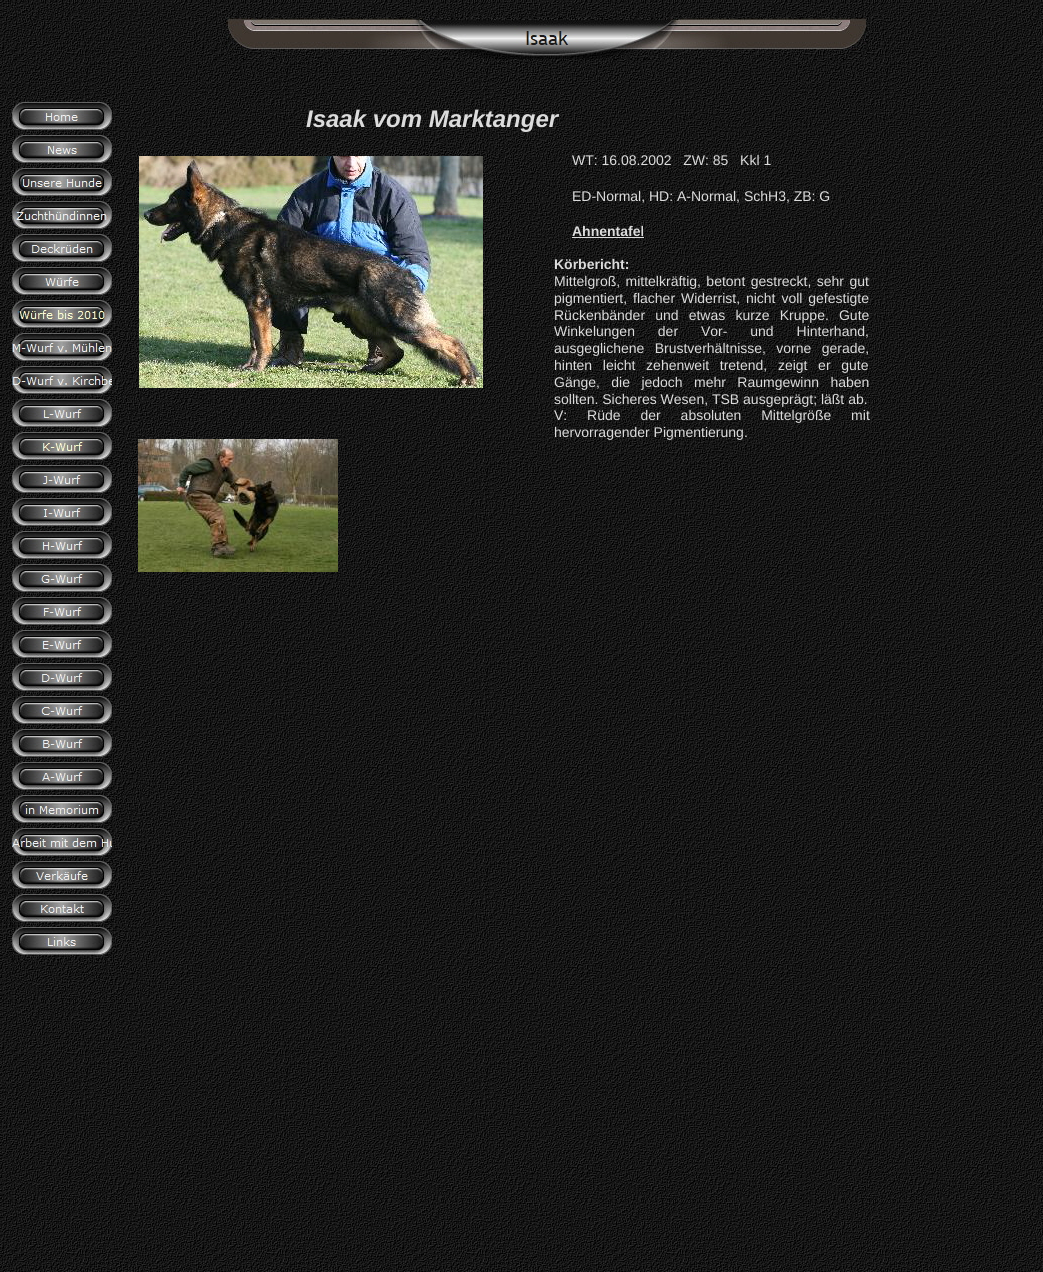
#include <cairo/cairo.h>
#include <math.h>
#include <stddef.h>

static cairo_t *cr;

static void use_color(int r, int g, int b) {
  cairo_set_source_rgb(cr, r / 255.0, g / 255.0, b / 255.0);
}

static void text(double x, double y, const char *s, const char *family, double size, int italic, int bold, int r, int g, int b) {
  cairo_select_font_face(cr, family, italic ? CAIRO_FONT_SLANT_ITALIC : CAIRO_FONT_SLANT_NORMAL,
    bold ? CAIRO_FONT_WEIGHT_BOLD : CAIRO_FONT_WEIGHT_NORMAL);
  cairo_set_font_size(cr, size);
  use_color(r, g, b);
  cairo_move_to(cr, x, y);
  cairo_show_text(cr, s);
}

static void spaced_text(double x, double y, const char *s, double letter, double word) {
  cairo_move_to(cr, x, y);
  while (*s) {
    char ch[5] = {0};
    int n = 0;
    do ch[n++] = *s++; while ((*s & 0xC0) == 0x80);
    cairo_show_text(cr, ch);
    cairo_rel_move_to(cr, letter + word * (*ch == ' '), 0);
  }
}

static void box(double x, double y, double w, double h, int r, int g, int b) {
  use_color(r, g, b);
  cairo_rectangle(cr, x, y, w, h);
  cairo_fill(cr);
}

static void picture(const char *path, double x, double y, double w, double h) {
  cairo_surface_t *image = cairo_image_surface_create_from_png(path);
  cairo_save(cr);
  cairo_set_source_surface(cr, image, x, y);
  cairo_rectangle(cr, x, y, w, h);
  cairo_fill(cr);
  cairo_restore(cr);
  cairo_surface_destroy(image);
}

static void draw(void) {
  use_color(255, 255, 255);
  cairo_paint(cr);
  picture("img_01.png", 0, 0, 1043, 1272);
  picture("img_02.png", 12, 102, 100, 33);
  picture("img_03.png", 12, 135, 100, 33);
  picture("img_04.png", 12, 168, 100, 33);
  picture("img_05.png", 12, 201, 100, 33);
  picture("img_06.png", 12, 234, 100, 33);
  picture("img_07.png", 12, 267, 100, 33);
  picture("img_08.png", 12, 300, 100, 33);
  picture("img_09.png", 12, 333, 100, 33);
  picture("img_10.png", 12, 366, 100, 33);
  picture("img_11.png", 12, 399, 100, 33);
  picture("img_12.png", 12, 432, 100, 33);
  picture("img_13.png", 12, 465, 100, 33);
  picture("img_14.png", 12, 498, 100, 33);
  picture("img_15.png", 12, 531, 100, 33);
  picture("img_16.png", 12, 564, 100, 33);
  picture("img_17.png", 12, 597, 100, 33);
  picture("img_18.png", 12, 630, 100, 33);
  picture("img_19.png", 12, 663, 100, 33);
  picture("img_20.png", 12, 696, 100, 33);
  picture("img_21.png", 12, 729, 100, 33);
  picture("img_22.png", 12, 762, 100, 33);
  picture("img_23.png", 12, 795, 100, 33);
  picture("img_24.png", 12, 828, 100, 33);
  picture("img_25.png", 12, 861, 100, 33);
  picture("img_26.png", 12, 894, 100, 33);
  picture("img_27.png", 12, 927, 100, 33);
  picture("img_28.png", 226, 18, 641, 41);
  picture("img_29.png", 139, 156, 344, 232);
  picture("img_30.png", 138, 439, 200, 133);
  box(572, 237, 72, 1, 220, 220, 220);
  text(306, 127, "Isaak vom Marktanger", "Liberation Sans", 24, 1, 1, 220, 220, 220);
  text(572, 165, "WT: 16.08.2002   ZW: 85   Kkl 1", "Liberation Sans", 14, 0, 0, 220, 220, 220);
  text(572, 201, "ED-Normal, HD: A-Normal, SchH3, ZB: G", "Liberation Sans", 14, 0, 0, 220, 220, 220);
  text(572, 236, "Ahnentafel", "Liberation Sans", 14, 0, 1, 220, 220, 220);
  text(554, 269, "Körbericht:", "Liberation Sans", 14, 0, 1, 220, 220, 220);
  cairo_select_font_face(cr, "Liberation Sans", CAIRO_FONT_SLANT_NORMAL, CAIRO_FONT_WEIGHT_NORMAL);
  spaced_text(554, 286, "Mittelgroß, mittelkräftig, betont gestreckt, sehr gut", 0, 1.5);
  spaced_text(554, 303, "pigmentiert, flacher Widerrist, nicht voll gefestigte", 0, 2);
  spaced_text(554, 320, "Rückenbänder und etwas kurze Kruppe. Gute", 0, 6.25);
  spaced_text(554, 336, "Winkelungen der Vor- und Hinterhand,", 0, 19);
  spaced_text(554, 353, "ausgeglichene Brustverhältnisse, vorne gerade,", 0, 6.5);
  spaced_text(554, 370, "hinten leicht zehenweit tretend, zeigt er gute", 0, 6.75);
  spaced_text(554, 387, "Gänge, die jedoch mehr Raumgewinn haben", 0, 7.5);
  text(554, 404, "sollten. Sicheres Wesen, TSB ausgeprägt; läßt ab.", "Liberation Sans", 14, 0, 0, 220, 220, 220);
  spaced_text(554, 420, "V: Rüde der absoluten Mittelgröße mit", 0, 16);
  text(554, 437, "hervorragender Pigmentierung.", "Liberation Sans", 14, 0, 0, 220, 220, 220);
}

int main(void) {
  cairo_surface_t *surface = cairo_image_surface_create(CAIRO_FORMAT_RGB24, 1043, 1272);
  cr = cairo_create(surface);
  cairo_font_options_t *options = cairo_font_options_create();
  cairo_font_options_set_hint_metrics(options, CAIRO_HINT_METRICS_OFF);
  cairo_font_options_set_hint_style(options, CAIRO_HINT_STYLE_NONE);
  cairo_set_font_options(cr, options);
  cairo_set_miter_limit(cr, 4);
  draw();
  cairo_surface_write_to_png(surface, "out.png");
  cairo_font_options_destroy(options);
  cairo_destroy(cr);
  cairo_surface_destroy(surface);
  return 0;
}
